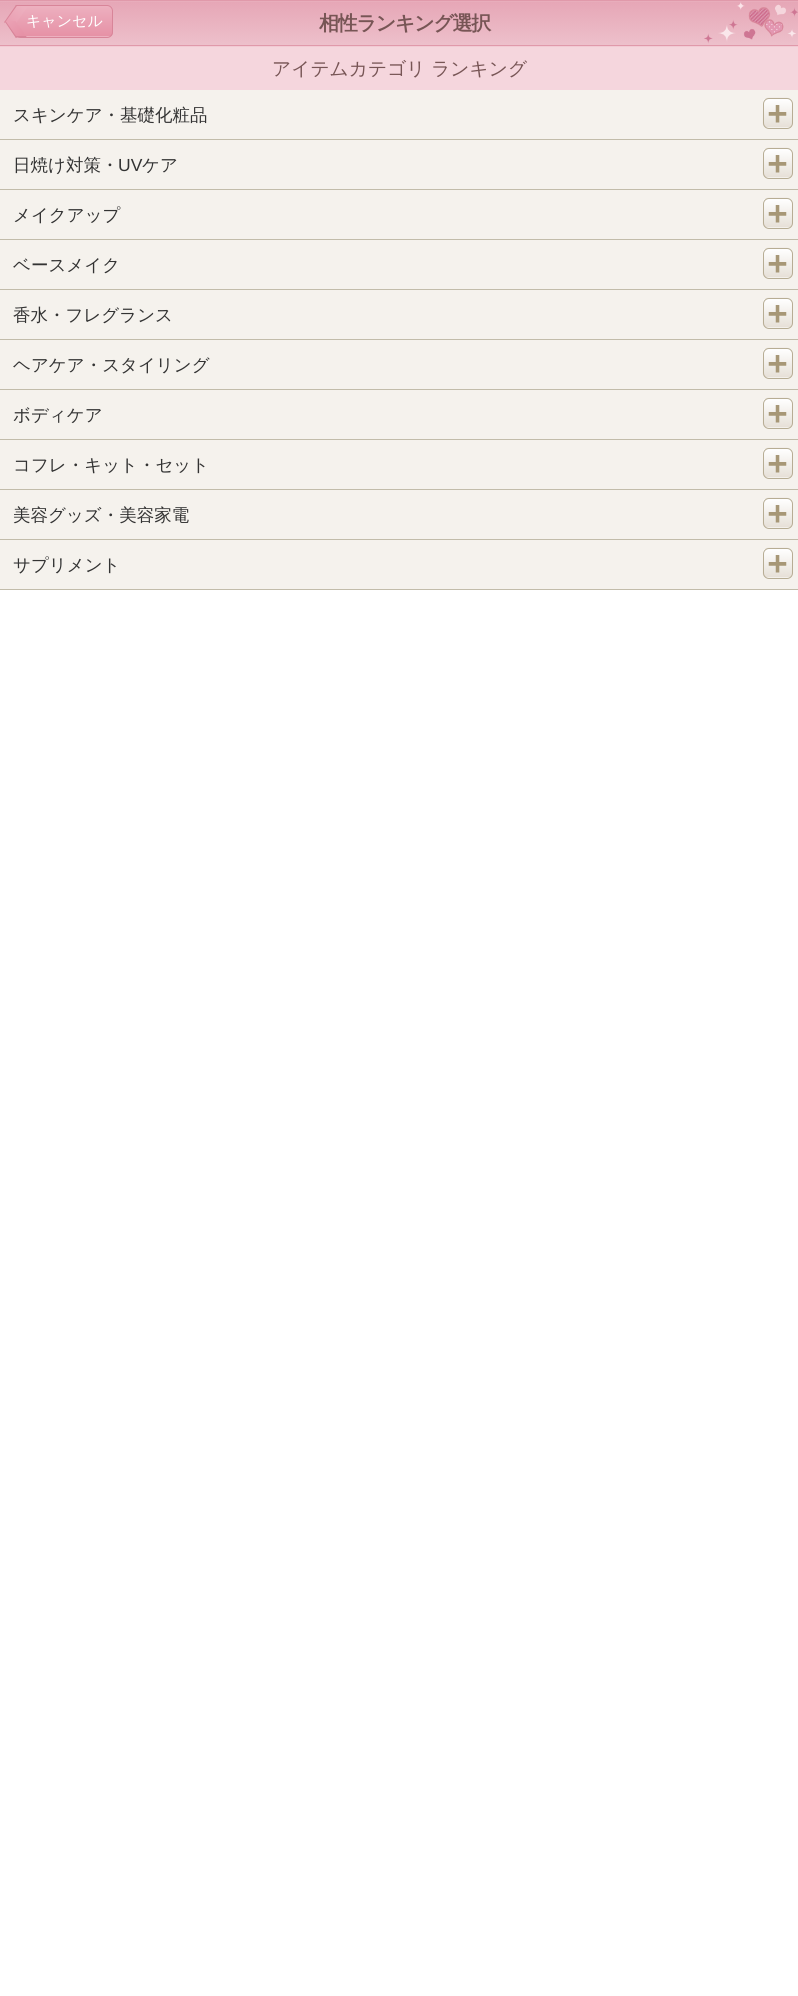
#include <cairo/cairo.h>
#include <math.h>
#include <stddef.h>

static cairo_t *cr;

static void use_color(int r, int g, int b) {
  cairo_set_source_rgb(cr, r / 255.0, g / 255.0, b / 255.0);
}

static void text(double x, double y, const char *s, const char *family, double size, int italic, int bold, int r, int g, int b) {
  cairo_select_font_face(cr, family, italic ? CAIRO_FONT_SLANT_ITALIC : CAIRO_FONT_SLANT_NORMAL,
    bold ? CAIRO_FONT_WEIGHT_BOLD : CAIRO_FONT_WEIGHT_NORMAL);
  cairo_set_font_size(cr, size);
  use_color(r, g, b);
  cairo_move_to(cr, x, y);
  cairo_show_text(cr, s);
}

static void spaced_text(double x, double y, const char *s, double letter, double word) {
  cairo_move_to(cr, x, y);
  while (*s) {
    char ch[5] = {0};
    int n = 0;
    do ch[n++] = *s++; while ((*s & 0xC0) == 0x80);
    cairo_show_text(cr, ch);
    cairo_rel_move_to(cr, letter + word * (*ch == ' '), 0);
  }
}

static void box(double x, double y, double w, double h, int r, int g, int b) {
  use_color(r, g, b);
  cairo_rectangle(cr, x, y, w, h);
  cairo_fill(cr);
}

static void round_rect(double x, double y, double w, double h, double r) {
  cairo_new_sub_path(cr);
  cairo_arc(cr, x + w - r, y + h - r, r, 0, M_PI / 2);
  cairo_arc(cr, x + r, y + h - r, r, M_PI / 2, M_PI);
  cairo_arc(cr, x + r, y + r, r, M_PI, 1.5 * M_PI);
  cairo_arc(cr, x + w - r, y + r, r, 1.5 * M_PI, 2 * M_PI);
  cairo_close_path(cr);
}

static void picture(const char *path, double x, double y, double w, double h) {
  cairo_surface_t *image = cairo_image_surface_create_from_png(path);
  cairo_save(cr);
  cairo_set_source_surface(cr, image, x, y);
  cairo_rectangle(cr, x, y, w, h);
  cairo_fill(cr);
  cairo_restore(cr);
  cairo_surface_destroy(image);
}

static void draw(void) {
  cairo_pattern_t *gradient;
  use_color(255, 255, 255);
  cairo_paint(cr);
  box(0, 46, 798, 44, 245, 214, 221);
  picture("img_01.png", 0, 1, 798, 46);
  box(0, 0, 798, 1, 224, 153, 170);
  box(0, 45, 798, 1, 224, 153, 170);
  cairo_save(cr);
  round_rect(15, 5, 98, 33, 6);
  cairo_clip(cr);
  gradient = cairo_pattern_create_linear(64, 6.2, 64, 36);
  cairo_pattern_add_color_stop_rgba(gradient, 0, 0.929, 0.69, 0.749, 1);
  cairo_pattern_add_color_stop_rgba(gradient, 1, 0.902, 0.569, 0.651, 1);
  cairo_set_source(cr, gradient);
  cairo_pattern_destroy(gradient);
  cairo_rectangle(cr, 16, 6, 97, 30);
  cairo_fill(cr);
  gradient = cairo_pattern_create_linear(64, 36, 64, 66);
  cairo_pattern_add_color_stop_rgba(gradient, 0, 0.929, 0.69, 0.749, 1);
  cairo_pattern_add_color_stop_rgba(gradient, 1, 0.902, 0.569, 0.651, 1);
  cairo_set_source(cr, gradient);
  cairo_pattern_destroy(gradient);
  cairo_rectangle(cr, 15, 36, 98, 2);
  cairo_fill(cr);
  cairo_restore(cr);
  round_rect(15.5, 5.5, 97, 32, 5.5);
  use_color(216, 133, 153);
  cairo_set_line_width(cr, 1);
  cairo_stroke(cr);
  cairo_new_path(cr);
  cairo_move_to(cr, 16, 5);
  cairo_line_to(cr, 28.5, 5);
  cairo_line_to(cr, 28, 6);
  cairo_line_to(cr, 15.5, 6);
  cairo_close_path(cr);
  cairo_fill(cr);
  cairo_new_path(cr);
  cairo_move_to(cr, 15, 36);
  cairo_line_to(cr, 26, 36);
  cairo_line_to(cr, 27, 37.5);
  cairo_line_to(cr, 15.5, 37.5);
  cairo_close_path(cr);
  cairo_fill(cr);
  box(0, 90, 798, 49, 245, 242, 237);
  box(0, 139, 798, 1, 194, 188, 170);
  picture("img_02.png", 762, 97, 31, 32);
  round_rect(763.5, 98.5, 29, 30, 5.5);
  use_color(183, 173, 148);
  cairo_stroke(cr);
  box(0, 140, 798, 49, 245, 242, 237);
  box(0, 189, 798, 1, 194, 188, 170);
  picture("img_02.png", 762, 147, 31, 32);
  round_rect(763.5, 148.5, 29, 30, 5.5);
  use_color(183, 173, 148);
  cairo_stroke(cr);
  box(0, 190, 798, 49, 245, 242, 237);
  box(0, 239, 798, 1, 194, 188, 170);
  picture("img_02.png", 762, 197, 31, 32);
  round_rect(763.5, 198.5, 29, 30, 5.5);
  use_color(183, 173, 148);
  cairo_stroke(cr);
  box(0, 240, 798, 49, 245, 242, 237);
  box(0, 289, 798, 1, 194, 188, 170);
  picture("img_02.png", 762, 247, 31, 32);
  round_rect(763.5, 248.5, 29, 30, 5.5);
  use_color(183, 173, 148);
  cairo_stroke(cr);
  box(0, 290, 798, 49, 245, 242, 237);
  box(0, 339, 798, 1, 194, 188, 170);
  picture("img_02.png", 762, 297, 31, 32);
  round_rect(763.5, 298.5, 29, 30, 5.5);
  use_color(183, 173, 148);
  cairo_stroke(cr);
  box(0, 340, 798, 49, 245, 242, 237);
  box(0, 389, 798, 1, 194, 188, 170);
  picture("img_02.png", 762, 347, 31, 32);
  round_rect(763.5, 348.5, 29, 30, 5.5);
  use_color(183, 173, 148);
  cairo_stroke(cr);
  box(0, 390, 798, 49, 245, 242, 237);
  box(0, 439, 798, 1, 194, 188, 170);
  picture("img_02.png", 762, 397, 31, 32);
  round_rect(763.5, 398.5, 29, 30, 5.5);
  use_color(183, 173, 148);
  cairo_stroke(cr);
  box(0, 440, 798, 49, 245, 242, 237);
  box(0, 489, 798, 1, 194, 188, 170);
  picture("img_02.png", 762, 447, 31, 32);
  round_rect(763.5, 448.5, 29, 30, 5.5);
  use_color(183, 173, 148);
  cairo_stroke(cr);
  box(0, 490, 798, 49, 245, 242, 237);
  box(0, 539, 798, 1, 194, 188, 170);
  picture("img_02.png", 762, 497, 31, 32);
  round_rect(763.5, 498.5, 29, 30, 5.5);
  use_color(183, 173, 148);
  cairo_stroke(cr);
  box(0, 540, 798, 49, 245, 242, 237);
  box(0, 589, 798, 1, 194, 188, 170);
  picture("img_02.png", 762, 547, 31, 32);
  round_rect(763.5, 548.5, 29, 30, 5.5);
  use_color(183, 173, 148);
  cairo_stroke(cr);
  text(26, 26, "キャンセル", "WenQuanYi Zen Hei Medium", 15, 0, 0, 255, 255, 255);
  gradient = cairo_pattern_create_linear(22, 6.2, 11, 23);
  cairo_pattern_add_color_stop_rgba(gradient, 0, 0.929, 0.69, 0.749, 1);
  cairo_pattern_add_color_stop_rgba(gradient, 1, 0.918, 0.627, 0.702, 1);
  cairo_set_source(cr, gradient);
  cairo_pattern_destroy(gradient);
  cairo_new_path(cr);
  cairo_move_to(cr, 15.5, 6);
  cairo_line_to(cr, 4, 22.5);
  cairo_line_to(cr, 16.5, 22.5);
  cairo_line_to(cr, 28, 6);
  cairo_close_path(cr);
  cairo_fill(cr);
  use_color(216, 133, 153);
  cairo_new_path(cr);
  cairo_move_to(cr, 16, 5);
  cairo_line_to(cr, 17.5, 5);
  cairo_line_to(cr, 5, 22.5);
  cairo_line_to(cr, 4, 22.5);
  cairo_close_path(cr);
  cairo_fill(cr);
  gradient = cairo_pattern_create_linear(11, 21, 21, 36);
  cairo_pattern_add_color_stop_rgba(gradient, 0, 0.918, 0.627, 0.702, 1);
  cairo_pattern_add_color_stop_rgba(gradient, 1, 0.902, 0.569, 0.651, 1);
  cairo_set_source(cr, gradient);
  cairo_pattern_destroy(gradient);
  cairo_new_path(cr);
  cairo_move_to(cr, 26, 36);
  cairo_line_to(cr, 15, 36);
  cairo_line_to(cr, 4.5, 21);
  cairo_line_to(cr, 15.5, 21);
  cairo_close_path(cr);
  cairo_fill(cr);
  use_color(216, 133, 153);
  cairo_new_path(cr);
  cairo_move_to(cr, 4.5, 21);
  cairo_line_to(cr, 5.5, 21);
  cairo_line_to(cr, 17, 37.5);
  cairo_line_to(cr, 15.5, 37.5);
  cairo_close_path(cr);
  cairo_fill(cr);
  cairo_select_font_face(cr, "WenQuanYi Zen Hei", CAIRO_FONT_SLANT_NORMAL, CAIRO_FONT_WEIGHT_BOLD);
  cairo_set_font_size(cr, 20);
  use_color(119, 85, 85);
  spaced_text(319, 30, "相性ランキング選択", -1.25, 0);
  text(272, 75, "アイテムカテゴリ ランキング", "WenQuanYi Zen Hei Medium", 18.75, 0, 0, 119, 85, 85);
  text(13, 121, "スキンケア・基礎化粧品", "WenQuanYi Zen Hei Medium", 17.5, 0, 0, 51, 51, 51);
  text(13, 171, "日焼け対策・", "WenQuanYi Zen Hei Medium", 17.5, 0, 0, 51, 51, 51);
  text(118, 171, "UV", "Liberation Sans", 17.5, 0, 0, 51, 51, 51);
  text(142, 171, "ケア", "WenQuanYi Zen Hei Medium", 17.5, 0, 0, 51, 51, 51);
  text(13, 221, "メイクアップ", "WenQuanYi Zen Hei Medium", 17.5, 0, 0, 51, 51, 51);
  text(13, 271, "ベースメイク", "WenQuanYi Zen Hei Medium", 17.5, 0, 0, 51, 51, 51);
  text(13, 321, "香水・フレグランス", "WenQuanYi Zen Hei Medium", 17.5, 0, 0, 51, 51, 51);
  text(13, 371, "ヘアケア・スタイリング", "WenQuanYi Zen Hei Medium", 17.5, 0, 0, 51, 51, 51);
  text(13, 421, "ボディケア", "WenQuanYi Zen Hei Medium", 17.5, 0, 0, 51, 51, 51);
  text(13, 471, "コフレ・キット・セット", "WenQuanYi Zen Hei Medium", 17.5, 0, 0, 51, 51, 51);
  text(13, 521, "美容グッズ・美容家電", "WenQuanYi Zen Hei Medium", 17.5, 0, 0, 51, 51, 51);
  text(13, 571, "サプリメント", "WenQuanYi Zen Hei Medium", 17.5, 0, 0, 51, 51, 51);
}

int main(void) {
  cairo_surface_t *surface = cairo_image_surface_create(CAIRO_FORMAT_RGB24, 798, 1996);
  cr = cairo_create(surface);
  cairo_font_options_t *options = cairo_font_options_create();
  cairo_font_options_set_hint_metrics(options, CAIRO_HINT_METRICS_OFF);
  cairo_font_options_set_hint_style(options, CAIRO_HINT_STYLE_NONE);
  cairo_set_font_options(cr, options);
  cairo_set_miter_limit(cr, 4);
  draw();
  cairo_surface_write_to_png(surface, "out.png");
  cairo_font_options_destroy(options);
  cairo_destroy(cr);
  cairo_surface_destroy(surface);
  return 0;
}
